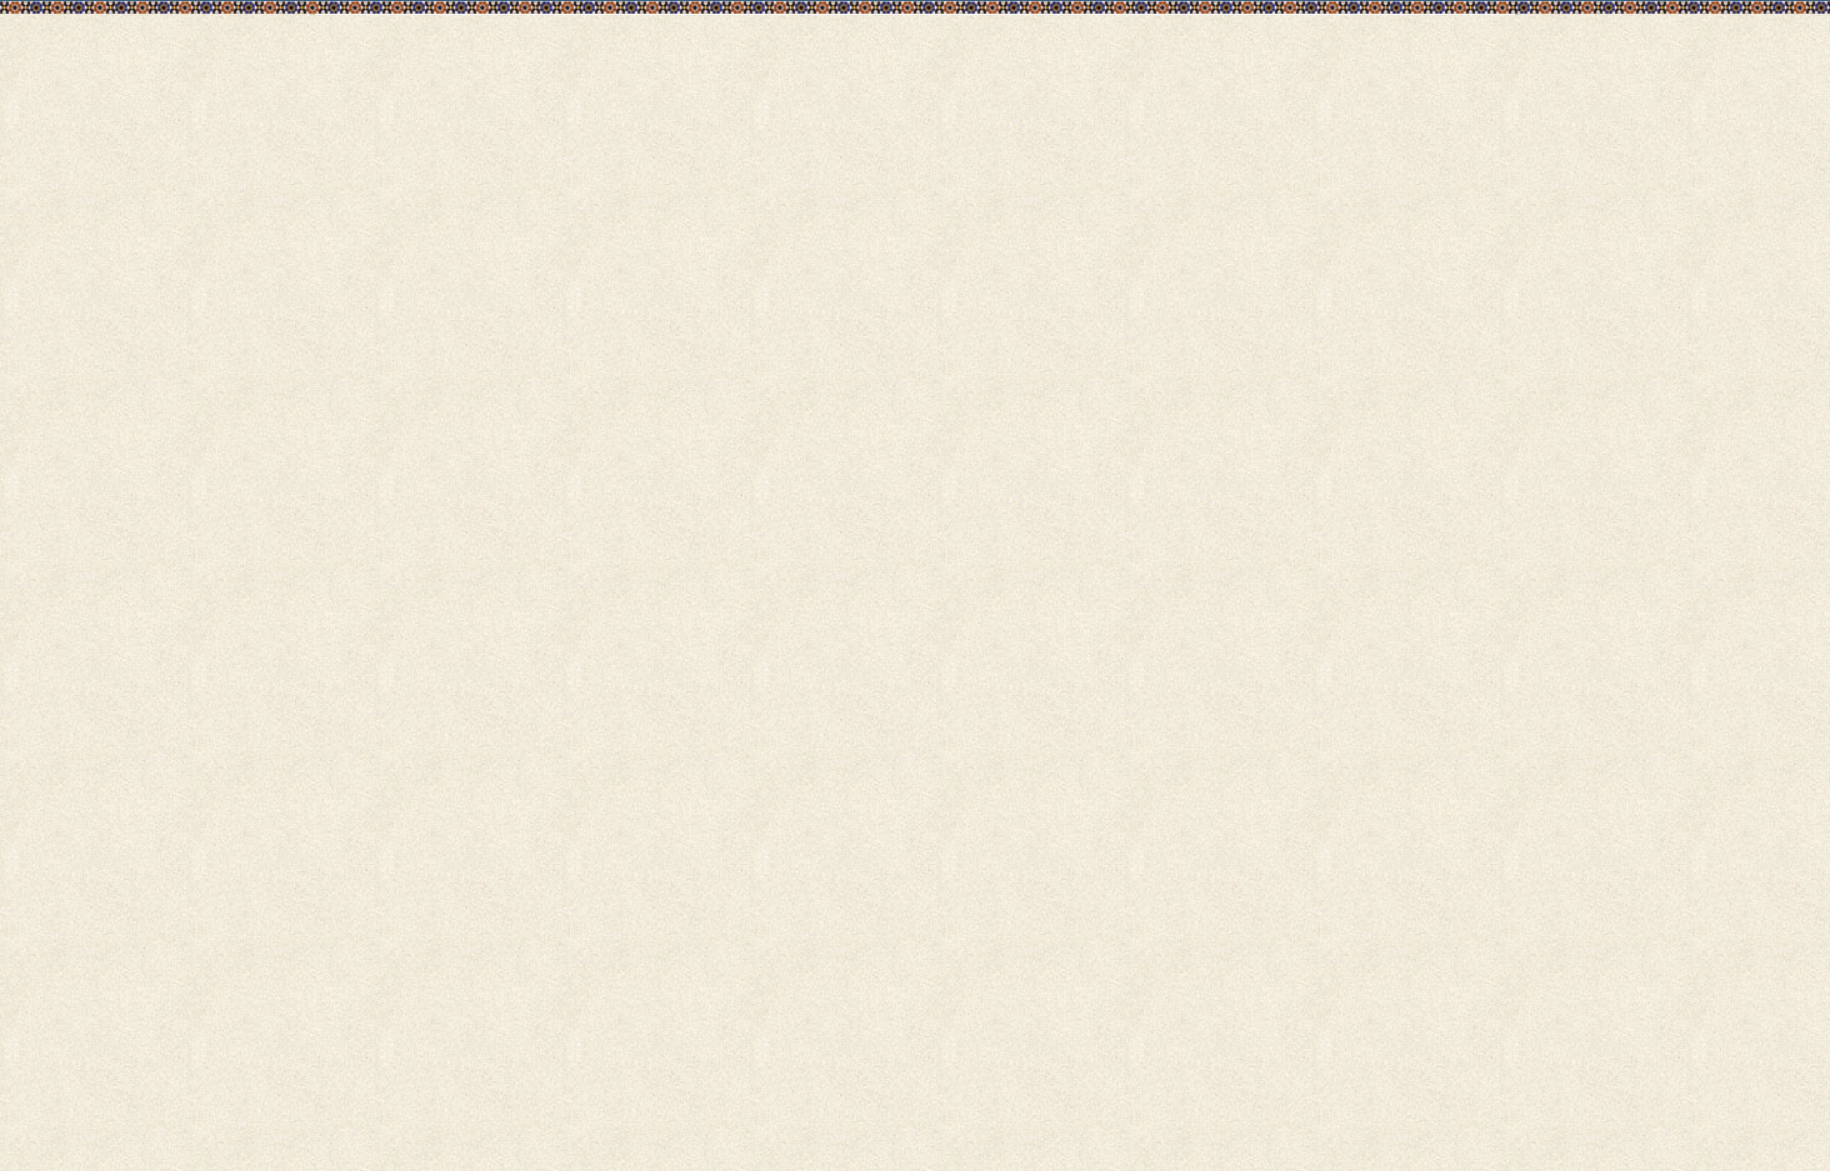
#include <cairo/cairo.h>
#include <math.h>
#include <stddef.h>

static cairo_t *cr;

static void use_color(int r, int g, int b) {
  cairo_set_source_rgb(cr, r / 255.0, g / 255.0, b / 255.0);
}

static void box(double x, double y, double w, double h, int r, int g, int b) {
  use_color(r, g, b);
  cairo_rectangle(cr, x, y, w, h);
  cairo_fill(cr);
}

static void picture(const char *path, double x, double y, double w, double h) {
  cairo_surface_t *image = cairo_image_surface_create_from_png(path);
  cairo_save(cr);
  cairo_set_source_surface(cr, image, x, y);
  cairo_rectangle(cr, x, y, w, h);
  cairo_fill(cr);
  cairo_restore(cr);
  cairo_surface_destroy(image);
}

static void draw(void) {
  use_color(255, 255, 255);
  cairo_paint(cr);
  picture("img_01.png", 0, 1, 1830, 1170);
  picture("img_02.png", 308, 1, 1214, 14);
  box(0, 0, 1830, 1, 57, 98, 128);
  picture("img_03.png", 0, 1, 1830, 13);
}

int main(void) {
  cairo_surface_t *surface = cairo_image_surface_create(CAIRO_FORMAT_RGB24, 1830, 1171);
  cr = cairo_create(surface);
  cairo_font_options_t *options = cairo_font_options_create();
  cairo_font_options_set_hint_metrics(options, CAIRO_HINT_METRICS_OFF);
  cairo_font_options_set_hint_style(options, CAIRO_HINT_STYLE_NONE);
  cairo_set_font_options(cr, options);
  cairo_set_miter_limit(cr, 4);
  draw();
  cairo_surface_write_to_png(surface, "out.png");
  cairo_font_options_destroy(options);
  cairo_destroy(cr);
  cairo_surface_destroy(surface);
  return 0;
}
